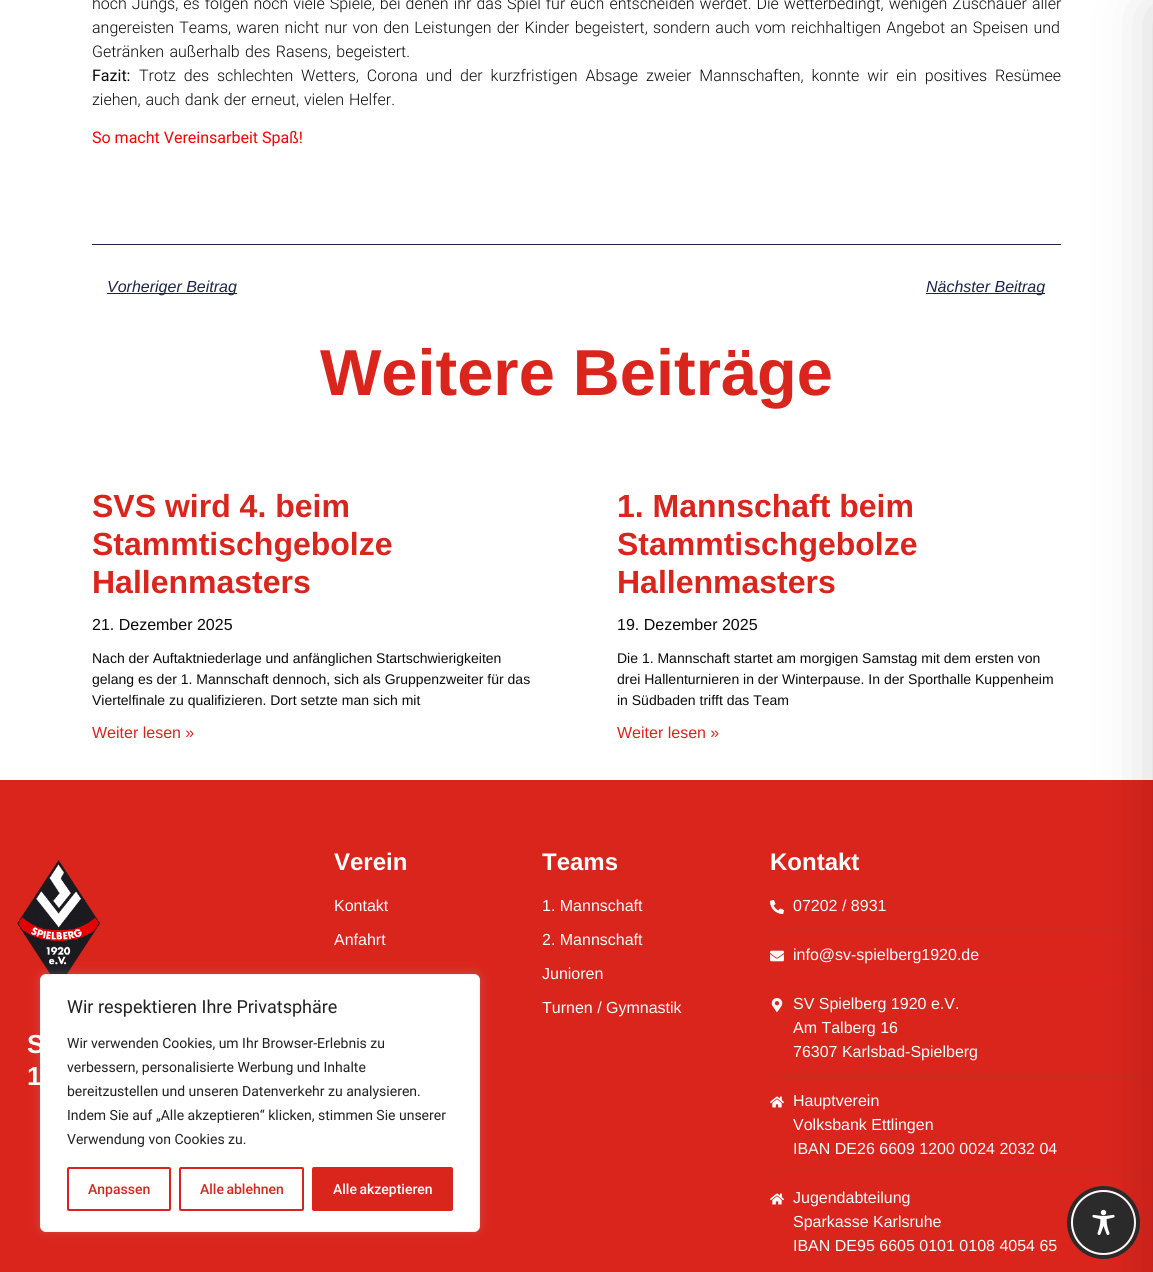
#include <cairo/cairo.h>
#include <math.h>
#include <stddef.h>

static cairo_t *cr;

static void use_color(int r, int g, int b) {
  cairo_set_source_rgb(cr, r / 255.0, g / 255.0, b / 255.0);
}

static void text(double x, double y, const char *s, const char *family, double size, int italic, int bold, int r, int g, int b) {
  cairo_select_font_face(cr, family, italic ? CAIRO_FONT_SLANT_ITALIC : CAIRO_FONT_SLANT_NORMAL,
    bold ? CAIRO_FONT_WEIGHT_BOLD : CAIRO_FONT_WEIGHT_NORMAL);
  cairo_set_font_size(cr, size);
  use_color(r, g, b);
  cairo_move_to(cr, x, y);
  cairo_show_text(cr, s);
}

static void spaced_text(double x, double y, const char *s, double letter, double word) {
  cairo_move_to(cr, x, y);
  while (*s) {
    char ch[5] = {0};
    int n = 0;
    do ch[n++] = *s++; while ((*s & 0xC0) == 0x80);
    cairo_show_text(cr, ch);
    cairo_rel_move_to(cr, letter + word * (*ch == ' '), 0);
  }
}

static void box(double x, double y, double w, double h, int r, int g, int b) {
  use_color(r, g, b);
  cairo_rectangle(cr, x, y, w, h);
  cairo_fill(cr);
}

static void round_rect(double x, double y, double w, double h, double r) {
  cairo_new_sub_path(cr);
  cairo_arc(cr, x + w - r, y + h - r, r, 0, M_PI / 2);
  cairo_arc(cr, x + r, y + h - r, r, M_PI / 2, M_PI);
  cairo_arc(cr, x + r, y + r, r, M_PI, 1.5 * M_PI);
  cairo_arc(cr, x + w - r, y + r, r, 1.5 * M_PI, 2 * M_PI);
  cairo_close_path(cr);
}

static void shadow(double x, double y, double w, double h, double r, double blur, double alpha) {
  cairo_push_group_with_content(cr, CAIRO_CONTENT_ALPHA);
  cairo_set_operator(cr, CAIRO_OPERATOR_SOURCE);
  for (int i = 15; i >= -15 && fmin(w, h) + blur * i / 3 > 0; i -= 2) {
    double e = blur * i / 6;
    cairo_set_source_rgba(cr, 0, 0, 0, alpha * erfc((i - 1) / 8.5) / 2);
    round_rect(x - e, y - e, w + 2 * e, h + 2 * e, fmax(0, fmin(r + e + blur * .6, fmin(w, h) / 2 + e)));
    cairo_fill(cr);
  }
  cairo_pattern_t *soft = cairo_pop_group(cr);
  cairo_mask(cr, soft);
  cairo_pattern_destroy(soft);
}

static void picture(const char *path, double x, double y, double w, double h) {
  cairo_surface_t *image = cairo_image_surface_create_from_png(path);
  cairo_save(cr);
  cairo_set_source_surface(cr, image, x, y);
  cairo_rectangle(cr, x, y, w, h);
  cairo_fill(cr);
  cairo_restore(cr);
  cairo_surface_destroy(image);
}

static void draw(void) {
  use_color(255, 255, 255);
  cairo_paint(cr);
  box(92, 244, 969, 1, 28, 36, 75);
  box(107, 293, 130, 1, 28, 36, 75);
  box(926, 293, 119, 1, 28, 36, 75);
  box(0, 780, 1153, 492, 218, 37, 29);
  box(770, 930, 376, 1, 201, 44, 37);
  box(770, 979, 376, 1, 201, 44, 37);
  box(770, 1076, 376, 1, 201, 44, 37);
  box(770, 1173, 376, 1, 201, 44, 37);
  cairo_arc(cr, 1103.5, 1222.5, 34.5, 0, 2 * M_PI);
  use_color(43, 43, 43);
  cairo_set_line_width(cr, 4);
  cairo_stroke(cr);
  cairo_arc(cr, 1103.5, 1222.5, 31.5, 0, 2 * M_PI);
  cairo_fill_preserve(cr);
  use_color(255, 255, 255);
  cairo_set_line_width(cr, 2);
  cairo_stroke(cr);
  picture("img_06.png", 1092, 1209, 23, 26);
  use_color(0, 0, 0);
  shadow(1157, 10, 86, 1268, 0, 30, 0.2);
  picture("img_01.png", 770, 900, 14, 14);
  picture("img_02.png", 770, 950, 14, 12);
  picture("img_03.png", 771, 998, 12, 14);
  picture("img_04.png", 770, 1096, 14, 12);
  picture("img_04.png", 770, 1193, 14, 12);
  picture("img_05.png", 17, 860, 83, 114);
  use_color(172, 171, 171);
  shadow(40, 973, 440, 258, 6, 5, 0.3);
  use_color(255, 255, 255);
  round_rect(40.5, 974.5, 439, 257, 5.5);
  cairo_fill_preserve(cr);
  use_color(244, 244, 244);
  cairo_set_line_width(cr, 1);
  cairo_stroke(cr);
  round_rect(68, 1168, 102, 42, 1);
  use_color(218, 37, 29);
  cairo_set_line_width(cr, 2);
  cairo_stroke(cr);
  round_rect(180, 1168, 123, 42, 1);
  cairo_stroke(cr);
  round_rect(313, 1168, 139, 42, 1);
  cairo_fill_preserve(cr);
  cairo_stroke(cr);
  cairo_select_font_face(cr, "Roboto Light", CAIRO_FONT_SLANT_NORMAL, CAIRO_FONT_WEIGHT_NORMAL);
  cairo_set_font_size(cr, 16);
  use_color(10, 10, 10);
  spaced_text(92, 9, "hoch Jungs, es folgen noch viele Spiele, bei denen ihr das Spiel für euch entscheiden werdet. Die wetterbedingt, wenigen Zuschauer aller", 0, 1.1);
  spaced_text(92, 33, "angereisten Teams, waren nicht nur von den Leistungen der Kinder begeistert, sondern auch vom reichhaltigen Angebot an Speisen und", 0, 1.3);
  spaced_text(92, 57, "Getränken außerhalb des Rasens, begeistert.", 0, 1.5);
  text(92, 81, "Fazit:", "Roboto", 16, 0, 0, 10, 10, 10);
  cairo_select_font_face(cr, "Roboto Light", CAIRO_FONT_SLANT_NORMAL, CAIRO_FONT_WEIGHT_NORMAL);
  spaced_text(139, 81, "Trotz des schlechten Wetters, Corona und der kurzfristigen Absage zweier Mannschaften, konnte wir ein positives Resümee", 0, 4);
  spaced_text(92, 105, "ziehen, auch dank der erneut, vielen Helfer.", 0, 1);
  text(92, 143, "So macht Vereinsarbeit Spaß!", "Roboto", 16, 0, 0, 255, 0, 0);
  text(107, 292, "Vorheriger Beitrag", "Liberation Sans", 16, 1, 0, 28, 36, 75);
  text(926, 292, "Nächster Beitrag", "Liberation Sans", 16, 1, 0, 28, 36, 75);
  text(320, 395, "Weitere Beiträge", "Liberation Sans", 65, 0, 1, 218, 37, 29);
  text(92, 517, "SVS wird 4. beim", "Liberation Sans", 32, 0, 1, 218, 37, 29);
  text(92, 555, "Stammtischgebolze", "Liberation Sans", 32, 0, 1, 218, 37, 29);
  text(92, 593, "Hallenmasters", "Liberation Sans", 32, 0, 1, 218, 37, 29);
  text(92, 630, "21. Dezember 2025", "Liberation Sans", 16, 0, 0, 10, 10, 10);
  text(92, 663, "Nach der Auftaktniederlage und anfänglichen Startschwierigkeiten", "Liberation Sans", 14, 0, 0, 10, 10, 10);
  text(92, 684, "gelang es der 1. Mannschaft dennoch, sich als Gruppenzweiter für das", "Liberation Sans", 14, 0, 0, 10, 10, 10);
  text(92, 705, "Viertelfinale zu qualifizieren. Dort setzte man sich mit", "Liberation Sans", 14, 0, 0, 10, 10, 10);
  text(92, 738, "Weiter lesen »", "Liberation Sans", 16, 0, 0, 218, 37, 29);
  text(617, 517, "1. Mannschaft beim", "Liberation Sans", 32, 0, 1, 218, 37, 29);
  text(617, 555, "Stammtischgebolze", "Liberation Sans", 32, 0, 1, 218, 37, 29);
  text(617, 593, "Hallenmasters", "Liberation Sans", 32, 0, 1, 218, 37, 29);
  text(617, 630, "19. Dezember 2025", "Liberation Sans", 16, 0, 0, 10, 10, 10);
  text(617, 663, "Die 1. Mannschaft startet am morgigen Samstag mit dem ersten von", "Liberation Sans", 14, 0, 0, 10, 10, 10);
  text(617, 684, "drei Hallenturnieren in der Winterpause. In der Sporthalle Kuppenheim", "Liberation Sans", 14, 0, 0, 10, 10, 10);
  text(617, 705, "in Südbaden trifft das Team", "Liberation Sans", 14, 0, 0, 10, 10, 10);
  text(617, 738, "Weiter lesen »", "Liberation Sans", 16, 0, 0, 218, 37, 29);
  text(334, 870, "Verein", "Liberation Sans", 24, 0, 1, 255, 255, 255);
  text(334, 911, "Kontakt", "Liberation Sans", 16, 0, 0, 255, 255, 255);
  text(334, 945, "Anfahrt", "Liberation Sans", 16, 0, 0, 255, 255, 255);
  text(542, 870, "Teams", "Liberation Sans", 24, 0, 1, 255, 255, 255);
  text(542, 911, "1. Mannschaft", "Liberation Sans", 16, 0, 0, 255, 255, 255);
  text(542, 945, "2. Mannschaft", "Liberation Sans", 16, 0, 0, 255, 255, 255);
  text(542, 979, "Junioren", "Liberation Sans", 16, 0, 0, 255, 255, 255);
  text(542, 1013, "Turnen / Gymnastik", "Liberation Sans", 16, 0, 0, 255, 255, 255);
  text(770, 870, "Kontakt", "Liberation Sans", 24, 0, 1, 255, 255, 255);
  text(793, 911, "07202 / 8931", "Liberation Sans", 16, 0, 0, 255, 255, 255);
  text(793, 960, "info@sv-spielberg1920.de", "Liberation Sans", 16, 0, 0, 255, 255, 255);
  text(793, 1009, "SV Spielberg 1920 e.V.", "Liberation Sans", 16, 0, 0, 255, 255, 255);
  text(793, 1033, "Am Talberg 16", "Liberation Sans", 16, 0, 0, 255, 255, 255);
  text(793, 1057, "76307 Karlsbad-Spielberg", "Liberation Sans", 16, 0, 0, 255, 255, 255);
  text(793, 1106, "Hauptverein", "Liberation Sans", 16, 0, 0, 255, 255, 255);
  text(793, 1130, "Volksbank Ettlingen", "Liberation Sans", 16, 0, 0, 255, 255, 255);
  text(793, 1154, "IBAN DE26 6609 1200 0024 2032 04", "Liberation Sans", 16, 0, 0, 255, 255, 255);
  text(793, 1203, "Jugendabteilung", "Liberation Sans", 16, 0, 0, 255, 255, 255);
  text(793, 1227, "Sparkasse Karlsruhe", "Liberation Sans", 16, 0, 0, 255, 255, 255);
  text(793, 1251, "IBAN DE95 6605 0101 0108 4054 65", "Liberation Sans", 16, 0, 0, 255, 255, 255);
  text(27, 1053, "S", "Liberation Sans", 26, 0, 1, 255, 255, 255);
  text(27, 1085, "1", "Liberation Sans", 26, 0, 1, 255, 255, 255);
  text(67, 1013, "Wir respektieren Ihre Privatsphäre", "Roboto", 18, 0, 0, 33, 33, 33);
  text(67, 1048, "Wir verwenden Cookies, um Ihr Browser-Erlebnis zu", "Roboto", 14, 0, 0, 33, 33, 33);
  text(67, 1072, "verbessern, personalisierte Werbung und Inhalte", "Roboto", 14, 0, 0, 33, 33, 33);
  text(67, 1096, "bereitzustellen und unseren Datenverkehr zu analysieren.", "Roboto", 14, 0, 0, 33, 33, 33);
  text(67, 1120, "Indem Sie auf „Alle akzeptieren“ klicken, stimmen Sie unserer", "Roboto", 14, 0, 0, 33, 33, 33);
  text(67, 1144, "Verwendung von Cookies zu.", "Roboto", 14, 0, 0, 33, 33, 33);
  text(88, 1194, "Anpassen", "Roboto Medium", 14, 0, 0, 218, 37, 29);
  spaced_text(200, 1194, "Alle ablehnen", 0, -1);
  use_color(255, 255, 255);
  spaced_text(333, 1194, "Alle akzeptieren", 0, -1);
}

int main(void) {
  cairo_surface_t *surface = cairo_image_surface_create(CAIRO_FORMAT_RGB24, 1153, 1272);
  cr = cairo_create(surface);
  cairo_font_options_t *options = cairo_font_options_create();
  cairo_font_options_set_hint_metrics(options, CAIRO_HINT_METRICS_OFF);
  cairo_font_options_set_hint_style(options, CAIRO_HINT_STYLE_NONE);
  cairo_set_font_options(cr, options);
  cairo_set_miter_limit(cr, 4);
  draw();
  cairo_surface_write_to_png(surface, "out.png");
  cairo_font_options_destroy(options);
  cairo_destroy(cr);
  cairo_surface_destroy(surface);
  return 0;
}
